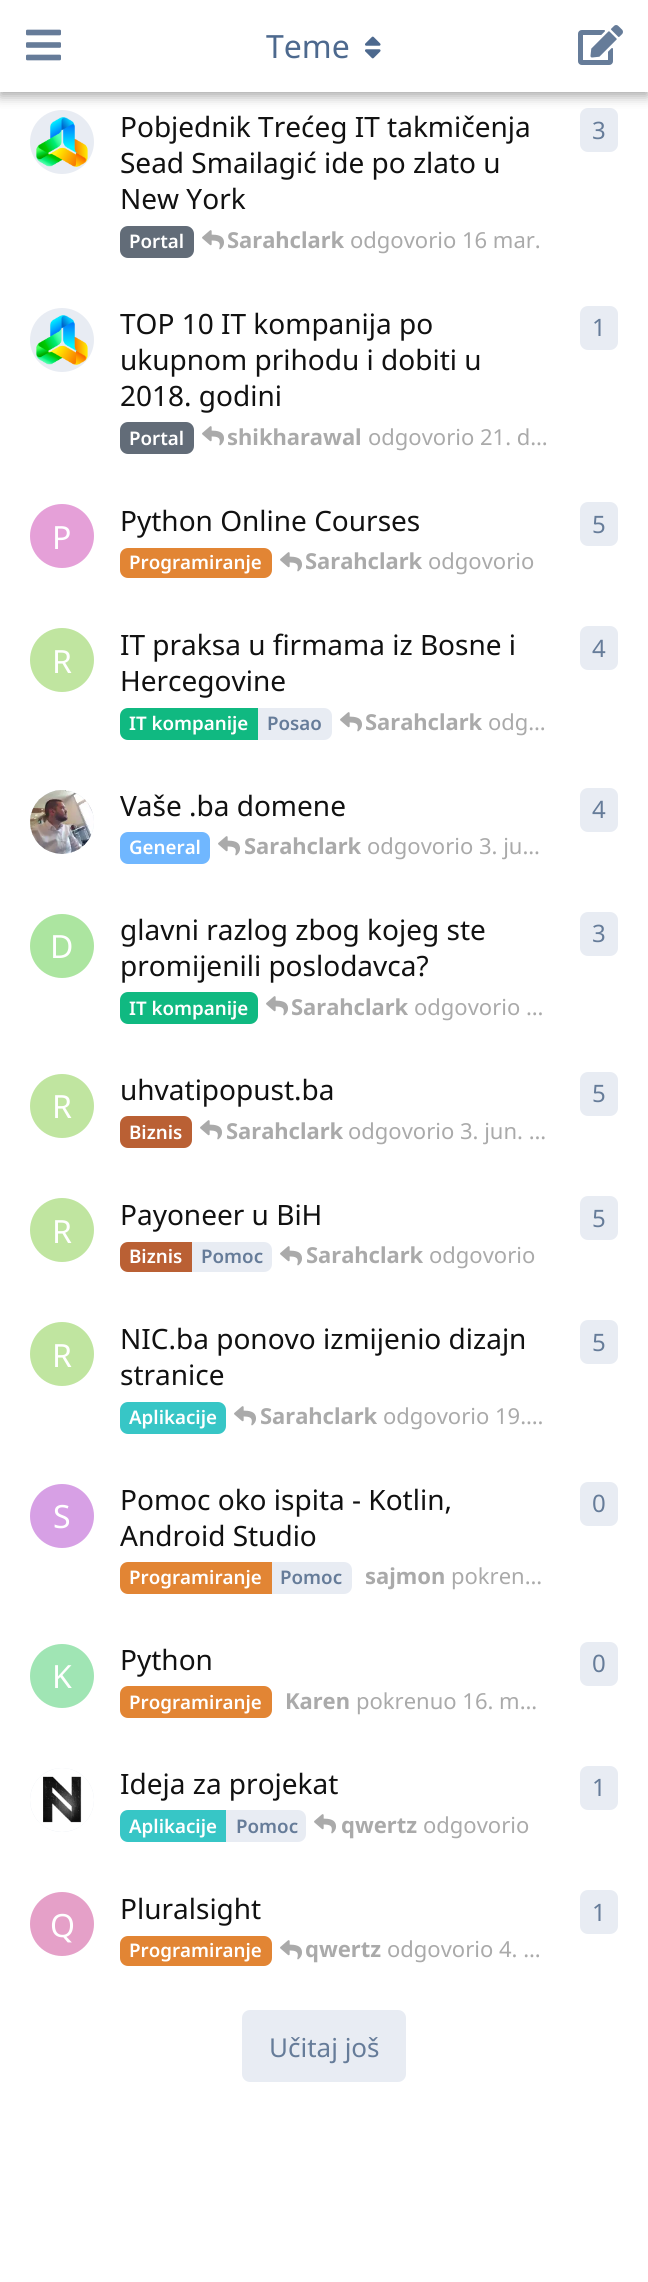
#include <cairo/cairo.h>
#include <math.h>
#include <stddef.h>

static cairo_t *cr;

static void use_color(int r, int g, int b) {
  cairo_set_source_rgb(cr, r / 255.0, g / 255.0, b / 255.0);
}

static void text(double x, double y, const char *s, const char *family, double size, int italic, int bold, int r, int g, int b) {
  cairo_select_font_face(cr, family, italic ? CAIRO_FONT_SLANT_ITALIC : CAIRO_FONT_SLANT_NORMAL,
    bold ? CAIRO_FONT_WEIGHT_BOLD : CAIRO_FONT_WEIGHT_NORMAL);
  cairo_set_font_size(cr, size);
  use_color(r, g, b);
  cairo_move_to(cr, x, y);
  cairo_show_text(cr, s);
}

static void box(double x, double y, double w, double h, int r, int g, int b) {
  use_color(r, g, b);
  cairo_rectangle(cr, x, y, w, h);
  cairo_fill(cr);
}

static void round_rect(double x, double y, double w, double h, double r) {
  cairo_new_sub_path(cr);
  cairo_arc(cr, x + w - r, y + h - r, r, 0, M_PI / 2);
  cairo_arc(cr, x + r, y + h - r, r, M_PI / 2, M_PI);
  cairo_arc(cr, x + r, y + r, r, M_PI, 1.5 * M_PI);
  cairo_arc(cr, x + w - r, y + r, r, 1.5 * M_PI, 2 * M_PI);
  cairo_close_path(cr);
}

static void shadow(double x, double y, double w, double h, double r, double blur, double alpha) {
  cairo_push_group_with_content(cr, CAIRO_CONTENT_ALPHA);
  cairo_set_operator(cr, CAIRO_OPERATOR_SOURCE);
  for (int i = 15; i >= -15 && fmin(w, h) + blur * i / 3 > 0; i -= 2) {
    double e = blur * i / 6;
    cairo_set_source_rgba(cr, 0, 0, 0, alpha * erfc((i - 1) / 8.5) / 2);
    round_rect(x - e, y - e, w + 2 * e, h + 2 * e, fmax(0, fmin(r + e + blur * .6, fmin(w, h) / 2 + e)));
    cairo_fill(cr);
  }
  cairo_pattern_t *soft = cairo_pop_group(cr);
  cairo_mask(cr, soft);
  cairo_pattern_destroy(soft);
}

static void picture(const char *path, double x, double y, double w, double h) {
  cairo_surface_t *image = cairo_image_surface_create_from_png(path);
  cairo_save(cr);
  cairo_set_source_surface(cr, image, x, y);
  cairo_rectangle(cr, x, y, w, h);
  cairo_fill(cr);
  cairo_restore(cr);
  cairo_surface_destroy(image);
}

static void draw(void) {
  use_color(255, 255, 255);
  cairo_paint(cr);
  use_color(232, 236, 243);
  cairo_arc(cr, 62, 142, 32, 0, 2 * M_PI);
  cairo_fill(cr);
  round_rect(580, 108, 38, 44, 8);
  cairo_fill(cr);
  use_color(0, 0, 0);
  shadow(0, 4, 648, 92, 0, 6, 0.35);
  box(0, 0, 648, 92, 255, 255, 255);
  picture("img_01.png", 26, 29, 35, 32);
  picture("img_02.png", 365, 36, 16, 23);
  picture("img_03.png", 578, 25, 45, 40);
  picture("img_04.png", 36, 117, 52, 50);
  use_color(98, 108, 120);
  round_rect(120, 226, 74, 32, 8);
  cairo_fill(cr);
  picture("img_05.png", 202, 230, 22, 20);
  use_color(232, 236, 243);
  cairo_arc(cr, 62, 340, 32, 0, 2 * M_PI);
  cairo_fill(cr);
  picture("img_04.png", 36, 315, 52, 50);
  use_color(98, 108, 120);
  round_rect(120, 422, 74, 32, 8);
  cairo_fill(cr);
  picture("img_05.png", 202, 426, 22, 20);
  use_color(232, 236, 243);
  round_rect(580, 306, 38, 44, 8);
  cairo_fill(cr);
  use_color(229, 160, 216);
  cairo_arc(cr, 62, 536, 32, 0, 2 * M_PI);
  cairo_fill(cr);
  use_color(226, 133, 52);
  round_rect(120, 548, 152, 30, 8);
  cairo_fill(cr);
  picture("img_05.png", 280, 552, 22, 20);
  use_color(232, 236, 243);
  round_rect(580, 502, 38, 44, 8);
  cairo_fill(cr);
  use_color(16, 185, 129);
  cairo_new_path(cr);
  cairo_move_to(cr, 128, 708);
  cairo_line_to(cr, 258, 708);
  cairo_line_to(cr, 258, 740);
  cairo_line_to(cr, 128, 740);
  cairo_curve_to(cr, 123.5, 740, 120, 736.5, 120, 732);
  cairo_line_to(cr, 120, 716);
  cairo_curve_to(cr, 120, 711.5, 123.5, 708, 128, 708);
  cairo_close_path(cr);
  cairo_fill(cr);
  use_color(232, 236, 243);
  cairo_new_path(cr);
  cairo_move_to(cr, 258, 708);
  cairo_line_to(cr, 324, 708);
  cairo_curve_to(cr, 328.5, 708, 332, 711.5, 332, 716);
  cairo_line_to(cr, 332, 732);
  cairo_curve_to(cr, 332, 736.5, 328.5, 740, 324, 740);
  cairo_line_to(cr, 258, 740);
  cairo_close_path(cr);
  cairo_fill(cr);
  picture("img_05.png", 340, 712, 22, 20);
  round_rect(580, 626, 38, 44, 8);
  cairo_fill(cr);
  use_color(192, 229, 160);
  cairo_arc(cr, 62, 660, 32, 0, 2 * M_PI);
  cairo_fill(cr);
  use_color(232, 236, 243);
  cairo_arc(cr, 62, 822, 32, 0, 2 * M_PI);
  cairo_fill(cr);
  picture("img_06.png", 30, 790, 64, 64);
  use_color(112, 183, 255);
  round_rect(120, 832, 90, 32, 8);
  cairo_fill(cr);
  picture("img_05.png", 218, 836, 22, 20);
  use_color(232, 236, 243);
  round_rect(580, 788, 38, 44, 8);
  cairo_fill(cr);
  use_color(172, 229, 160);
  cairo_arc(cr, 62, 946, 32, 0, 2 * M_PI);
  cairo_fill(cr);
  use_color(16, 185, 129);
  round_rect(120, 992, 138, 32, 8);
  cairo_fill(cr);
  picture("img_05.png", 266, 996, 22, 20);
  use_color(232, 236, 243);
  round_rect(580, 912, 38, 44, 8);
  cairo_fill(cr);
  use_color(192, 229, 160);
  cairo_arc(cr, 62, 1106, 32, 0, 2 * M_PI);
  cairo_fill(cr);
  use_color(186, 96, 52);
  round_rect(120, 1116, 72, 32, 8);
  cairo_fill(cr);
  picture("img_05.png", 200, 1120, 22, 20);
  use_color(232, 236, 243);
  round_rect(580, 1072, 38, 44, 8);
  cairo_fill(cr);
  use_color(192, 229, 160);
  cairo_arc(cr, 62, 1230, 32, 0, 2 * M_PI);
  cairo_fill(cr);
  use_color(186, 96, 52);
  cairo_new_path(cr);
  cairo_move_to(cr, 128, 1242);
  cairo_line_to(cr, 192, 1242);
  cairo_line_to(cr, 192, 1272);
  cairo_line_to(cr, 128, 1272);
  cairo_curve_to(cr, 123.5, 1272, 120, 1268.5, 120, 1264);
  cairo_line_to(cr, 120, 1250);
  cairo_curve_to(cr, 120, 1245.5, 123.5, 1242, 128, 1242);
  cairo_close_path(cr);
  cairo_fill(cr);
  use_color(232, 236, 243);
  cairo_new_path(cr);
  cairo_move_to(cr, 192, 1242);
  cairo_line_to(cr, 264, 1242);
  cairo_curve_to(cr, 268.5, 1242, 272, 1245.5, 272, 1250);
  cairo_line_to(cr, 272, 1264);
  cairo_curve_to(cr, 272, 1268.5, 268.5, 1272, 264, 1272);
  cairo_line_to(cr, 192, 1272);
  cairo_close_path(cr);
  cairo_fill(cr);
  picture("img_05.png", 280, 1246, 22, 20);
  round_rect(580, 1196, 38, 44, 8);
  cairo_fill(cr);
  use_color(192, 229, 160);
  cairo_arc(cr, 62, 1354, 32, 0, 2 * M_PI);
  cairo_fill(cr);
  use_color(55, 198, 198);
  round_rect(120, 1402, 106, 32, 8);
  cairo_fill(cr);
  picture("img_05.png", 234, 1406, 22, 20);
  use_color(232, 236, 243);
  round_rect(580, 1320, 38, 44, 8);
  cairo_fill(cr);
  use_color(215, 160, 229);
  cairo_arc(cr, 62, 1516, 32, 0, 2 * M_PI);
  cairo_fill(cr);
  use_color(226, 133, 52);
  cairo_new_path(cr);
  cairo_move_to(cr, 128, 1562);
  cairo_line_to(cr, 272, 1562);
  cairo_line_to(cr, 272, 1594);
  cairo_line_to(cr, 128, 1594);
  cairo_curve_to(cr, 123.5, 1594, 120, 1590.5, 120, 1586);
  cairo_line_to(cr, 120, 1570);
  cairo_curve_to(cr, 120, 1565.5, 123.5, 1562, 128, 1562);
  cairo_close_path(cr);
  cairo_fill(cr);
  use_color(232, 236, 243);
  cairo_new_path(cr);
  cairo_move_to(cr, 272, 1562);
  cairo_line_to(cr, 344, 1562);
  cairo_curve_to(cr, 348.5, 1562, 352, 1565.5, 352, 1570);
  cairo_line_to(cr, 352, 1586);
  cairo_curve_to(cr, 352, 1590.5, 348.5, 1594, 344, 1594);
  cairo_line_to(cr, 272, 1594);
  cairo_close_path(cr);
  cairo_fill(cr);
  round_rect(580, 1482, 38, 44, 8);
  cairo_fill(cr);
  use_color(160, 229, 180);
  cairo_arc(cr, 62, 1676, 32, 0, 2 * M_PI);
  cairo_fill(cr);
  use_color(226, 133, 52);
  round_rect(120, 1686, 152, 32, 8);
  cairo_fill(cr);
  use_color(232, 236, 243);
  round_rect(580, 1642, 38, 44, 8);
  cairo_fill(cr);
  cairo_arc(cr, 62, 1800, 32, 0, 2 * M_PI);
  cairo_fill(cr);
  picture("img_07.png", 30, 1768, 64, 64);
  use_color(55, 198, 198);
  cairo_new_path(cr);
  cairo_move_to(cr, 128, 1810);
  cairo_line_to(cr, 226, 1810);
  cairo_line_to(cr, 226, 1842);
  cairo_line_to(cr, 128, 1842);
  cairo_curve_to(cr, 123.5, 1842, 120, 1838.5, 120, 1834);
  cairo_line_to(cr, 120, 1818);
  cairo_curve_to(cr, 120, 1813.5, 123.5, 1810, 128, 1810);
  cairo_close_path(cr);
  cairo_fill(cr);
  use_color(232, 236, 243);
  cairo_new_path(cr);
  cairo_move_to(cr, 226, 1810);
  cairo_line_to(cr, 298, 1810);
  cairo_curve_to(cr, 302.5, 1810, 306, 1813.5, 306, 1818);
  cairo_line_to(cr, 306, 1834);
  cairo_curve_to(cr, 306, 1838.5, 302.5, 1842, 298, 1842);
  cairo_line_to(cr, 226, 1842);
  cairo_close_path(cr);
  cairo_fill(cr);
  picture("img_05.png", 314, 1814, 22, 20);
  round_rect(580, 1766, 38, 44, 8);
  cairo_fill(cr);
  use_color(229, 160, 200);
  cairo_arc(cr, 62, 1924, 32, 0, 2 * M_PI);
  cairo_fill(cr);
  use_color(226, 133, 52);
  round_rect(120, 1936, 152, 30, 8);
  cairo_fill(cr);
  picture("img_05.png", 280, 1940, 22, 20);
  use_color(232, 236, 243);
  round_rect(580, 1890, 38, 44, 8);
  cairo_fill(cr);
  round_rect(242, 2010, 164, 72, 8);
  cairo_fill(cr);
  text(266, 58, "Teme", "Noto Sans", 32, 0, 0, 77, 105, 142);
  text(120, 137, "Pobjednik Trećeg IT takmičenja", "Noto Sans", 28, 0, 0, 17, 17, 17);
  text(120, 173, "Sead Smailagić ide po zlato u", "Noto Sans", 28, 0, 0, 17, 17, 17);
  text(120, 209, "New York", "Noto Sans", 28, 0, 0, 17, 17, 17);
  text(129, 248, "Portal", "Noto Sans SemiBold", 18.75, 0, 0, 255, 255, 255);
  text(227, 248, "Sarahclark", "Noto Sans", 22, 0, 1, 170, 170, 170);
  text(350, 248, "odgovorio 16 mar.", "Noto Sans", 22, 0, 0, 170, 170, 170);
  text(592, 139, "3", "Noto Sans", 24, 0, 0, 102, 124, 153);
  text(120, 334, "TOP 10 IT kompanija po", "Noto Sans", 28, 0, 0, 17, 17, 17);
  text(120, 370, "ukupnom prihodu i dobiti u", "Noto Sans", 28, 0, 0, 17, 17, 17);
  text(120, 406, "2018. godini", "Noto Sans", 28, 0, 0, 17, 17, 17);
  text(129, 445, "Portal", "Noto Sans SemiBold", 18.75, 0, 0, 255, 255, 255);
  text(227, 445, "shikharawal", "Noto Sans", 22, 0, 1, 170, 170, 170);
  text(368, 445, "odgovorio 21. d…", "Noto Sans", 22, 0, 0, 170, 170, 170);
  text(592, 336, "1", "Noto Sans", 24, 0, 0, 102, 124, 153);
  text(52, 549, "P", "Noto Sans", 32, 0, 0, 255, 255, 255);
  text(120, 531, "Python Online Courses", "Noto Sans", 28, 0, 0, 17, 17, 17);
  text(129, 569, "Programiranje", "Noto Sans SemiBold", 18.75, 0, 0, 255, 255, 255);
  text(305, 569, "Sarahclark", "Noto Sans", 22, 0, 1, 170, 170, 170);
  text(428, 569, "odgovorio", "Noto Sans", 22, 0, 0, 170, 170, 170);
  text(592, 533, "5", "Noto Sans", 24, 0, 0, 102, 124, 153);
  text(120, 655, "IT praksa u firmama iz Bosne i", "Noto Sans", 28, 0, 0, 17, 17, 17);
  text(120, 691, "Hercegovine", "Noto Sans", 28, 0, 0, 17, 17, 17);
  text(129, 730, "IT kompanije", "Noto Sans SemiBold", 18.75, 0, 0, 255, 255, 255);
  text(267, 730, "Posao", "Noto Sans SemiBold", 18.75, 0, 0, 102, 124, 153);
  text(365, 730, "Sarahclark", "Noto Sans", 22, 0, 1, 170, 170, 170);
  text(488, 730, "odg…", "Noto Sans", 22, 0, 0, 170, 170, 170);
  text(592, 657, "4", "Noto Sans", 24, 0, 0, 102, 124, 153);
  text(52, 673, "R", "Noto Sans", 32, 0, 0, 255, 255, 255);
  text(120, 816, "Vaše .ba domene", "Noto Sans", 28, 0, 0, 17, 17, 17);
  text(129, 854, "General", "Noto Sans SemiBold", 18.75, 0, 0, 255, 255, 255);
  text(244, 854, "Sarahclark", "Noto Sans", 22, 0, 1, 170, 170, 170);
  text(367, 854, "odgovorio 3. ju…", "Noto Sans", 22, 0, 0, 170, 170, 170);
  text(592, 818, "4", "Noto Sans", 24, 0, 0, 102, 124, 153);
  text(50, 958, "D", "Noto Sans", 32, 0, 0, 255, 255, 255);
  text(120, 940, "glavni razlog zbog kojeg ste", "Noto Sans", 28, 0, 0, 17, 17, 17);
  text(120, 976, "promijenili poslodavca?", "Noto Sans", 28, 0, 0, 17, 17, 17);
  text(129, 1015, "IT kompanije", "Noto Sans SemiBold", 18.75, 0, 0, 255, 255, 255);
  text(291, 1015, "Sarahclark", "Noto Sans", 22, 0, 1, 170, 170, 170);
  text(414, 1015, "odgovorio …", "Noto Sans", 22, 0, 0, 170, 170, 170);
  text(592, 942, "3", "Noto Sans", 24, 0, 0, 102, 124, 153);
  text(52, 1118, "R", "Noto Sans", 32, 0, 0, 255, 255, 255);
  text(120, 1100, "uhvatipopust.ba", "Noto Sans", 28, 0, 0, 17, 17, 17);
  text(129, 1139, "Biznis", "Noto Sans SemiBold", 18.75, 0, 0, 255, 255, 255);
  text(226, 1139, "Sarahclark", "Noto Sans", 22, 0, 1, 170, 170, 170);
  text(348, 1139, "odgovorio 3. jun. …", "Noto Sans", 22, 0, 0, 170, 170, 170);
  text(592, 1102, "5", "Noto Sans", 24, 0, 0, 102, 124, 153);
  text(52, 1243, "R", "Noto Sans", 32, 0, 0, 255, 255, 255);
  text(120, 1225, "Payoneer u BiH", "Noto Sans", 28, 0, 0, 17, 17, 17);
  text(129, 1263, "Biznis", "Noto Sans SemiBold", 18.75, 0, 0, 255, 255, 255);
  text(201, 1263, "Pomoc", "Noto Sans SemiBold", 18.75, 0, 0, 102, 124, 153);
  text(306, 1263, "Sarahclark", "Noto Sans", 22, 0, 1, 170, 170, 170);
  text(429, 1263, "odgovorio", "Noto Sans", 22, 0, 0, 170, 170, 170);
  text(592, 1227, "5", "Noto Sans", 24, 0, 0, 102, 124, 153);
  text(52, 1367, "R", "Noto Sans", 32, 0, 0, 255, 255, 255);
  text(120, 1349, "NIC.ba ponovo izmijenio dizajn", "Noto Sans", 28, 0, 0, 17, 17, 17);
  text(120, 1385, "stranice", "Noto Sans", 28, 0, 0, 17, 17, 17);
  text(129, 1424, "Aplikacije", "Noto Sans SemiBold", 18.75, 0, 0, 255, 255, 255);
  text(260, 1424, "Sarahclark", "Noto Sans", 22, 0, 1, 170, 170, 170);
  text(383, 1424, "odgovorio 19.…", "Noto Sans", 22, 0, 0, 170, 170, 170);
  text(592, 1351, "5", "Noto Sans", 24, 0, 0, 102, 124, 153);
  text(53, 1528, "S", "Noto Sans", 32, 0, 0, 255, 255, 255);
  text(120, 1510, "Pomoc oko ispita - Kotlin,", "Noto Sans", 28, 0, 0, 17, 17, 17);
  text(120, 1546, "Android Studio", "Noto Sans", 28, 0, 0, 17, 17, 17);
  text(129, 1584, "Programiranje", "Noto Sans SemiBold", 18.75, 0, 0, 255, 255, 255);
  text(280, 1584, "Pomoc", "Noto Sans SemiBold", 18.75, 0, 0, 102, 124, 153);
  text(365, 1584, "sajmon", "Noto Sans", 22, 0, 1, 170, 170, 170);
  text(451, 1584, "pokren…", "Noto Sans", 22, 0, 0, 170, 170, 170);
  text(592, 1512, "0", "Noto Sans", 24, 0, 0, 102, 124, 153);
  text(52, 1688, "K", "Noto Sans", 32, 0, 0, 255, 255, 255);
  text(120, 1670, "Python", "Noto Sans", 28, 0, 0, 17, 17, 17);
  text(129, 1709, "Programiranje", "Noto Sans SemiBold", 18.75, 0, 0, 255, 255, 255);
  text(285, 1709, "Karen", "Noto Sans", 22, 0, 1, 170, 170, 170);
  text(356, 1709, "pokrenuo 16. m…", "Noto Sans", 22, 0, 0, 170, 170, 170);
  text(592, 1672, "0", "Noto Sans", 24, 0, 0, 102, 124, 153);
  text(120, 1794, "Ideja za projekat", "Noto Sans", 28, 0, 0, 17, 17, 17);
  text(129, 1833, "Aplikacije", "Noto Sans SemiBold", 18.75, 0, 0, 255, 255, 255);
  text(236, 1833, "Pomoc", "Noto Sans SemiBold", 18.75, 0, 0, 102, 124, 153);
  text(341, 1833, "qwertz", "Noto Sans", 22, 0, 1, 170, 170, 170);
  text(423, 1833, "odgovorio", "Noto Sans", 22, 0, 0, 170, 170, 170);
  text(592, 1796, "1", "Noto Sans", 24, 0, 0, 102, 124, 153);
  text(50, 1937, "Q", "Noto Sans", 32, 0, 0, 255, 255, 255);
  text(120, 1919, "Pluralsight", "Noto Sans", 28, 0, 0, 17, 17, 17);
  text(129, 1957, "Programiranje", "Noto Sans SemiBold", 18.75, 0, 0, 255, 255, 255);
  text(305, 1957, "qwertz", "Noto Sans", 22, 0, 1, 170, 170, 170);
  text(387, 1957, "odgovorio 4. …", "Noto Sans", 22, 0, 0, 170, 170, 170);
  text(592, 1921, "1", "Noto Sans", 24, 0, 0, 102, 124, 153);
  text(269, 2057, "Učitaj još", "Noto Sans", 26, 0, 0, 102, 124, 153);
}

int main(void) {
  cairo_surface_t *surface = cairo_image_surface_create(CAIRO_FORMAT_RGB24, 648, 2282);
  cr = cairo_create(surface);
  cairo_font_options_t *options = cairo_font_options_create();
  cairo_font_options_set_hint_metrics(options, CAIRO_HINT_METRICS_OFF);
  cairo_font_options_set_hint_style(options, CAIRO_HINT_STYLE_NONE);
  cairo_set_font_options(cr, options);
  cairo_set_miter_limit(cr, 4);
  draw();
  cairo_surface_write_to_png(surface, "out.png");
  cairo_font_options_destroy(options);
  cairo_destroy(cr);
  cairo_surface_destroy(surface);
  return 0;
}
